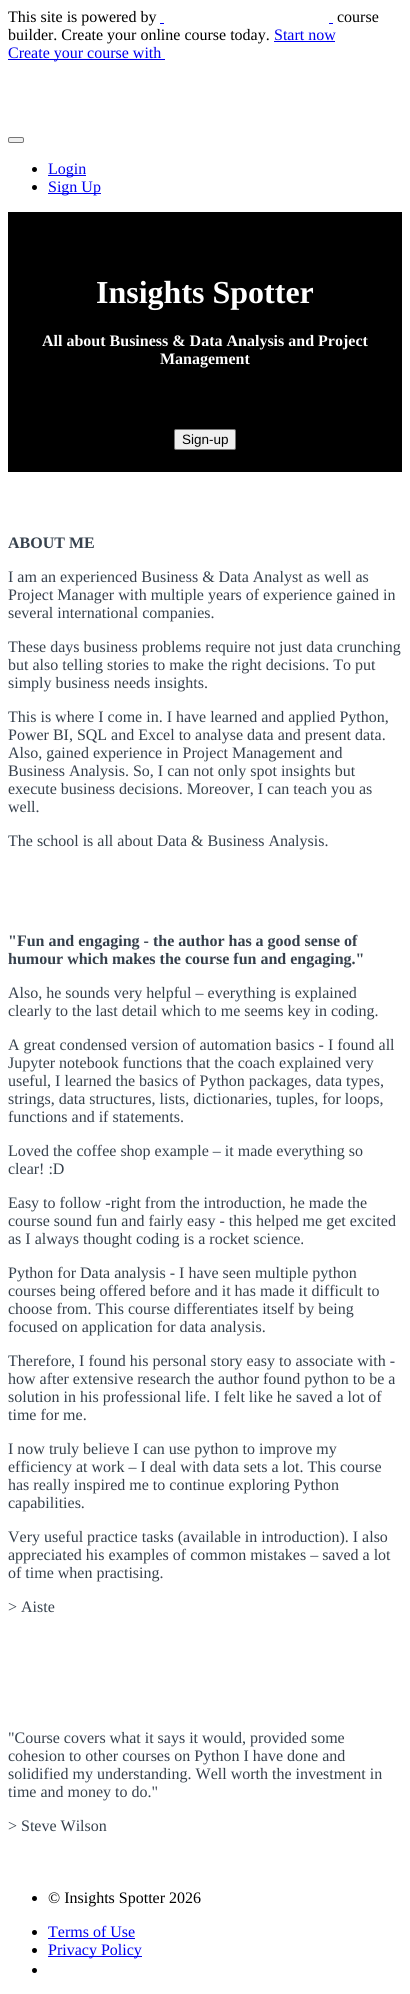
#include <cairo/cairo.h>
#include <math.h>
#include <stddef.h>

static cairo_t *cr;

static void use_color(int r, int g, int b) {
  cairo_set_source_rgb(cr, r / 255.0, g / 255.0, b / 255.0);
}

static void text(double x, double y, const char *s, const char *family, double size, int italic, int bold, int r, int g, int b) {
  cairo_select_font_face(cr, family, italic ? CAIRO_FONT_SLANT_ITALIC : CAIRO_FONT_SLANT_NORMAL,
    bold ? CAIRO_FONT_WEIGHT_BOLD : CAIRO_FONT_WEIGHT_NORMAL);
  cairo_set_font_size(cr, size);
  use_color(r, g, b);
  cairo_move_to(cr, x, y);
  cairo_show_text(cr, s);
}

static void box(double x, double y, double w, double h, int r, int g, int b) {
  use_color(r, g, b);
  cairo_rectangle(cr, x, y, w, h);
  cairo_fill(cr);
}

static void round_rect(double x, double y, double w, double h, double r) {
  cairo_new_sub_path(cr);
  cairo_arc(cr, x + w - r, y + h - r, r, 0, M_PI / 2);
  cairo_arc(cr, x + r, y + h - r, r, M_PI / 2, M_PI);
  cairo_arc(cr, x + r, y + r, r, M_PI, 1.5 * M_PI);
  cairo_arc(cr, x + w - r, y + r, r, 1.5 * M_PI, 2 * M_PI);
  cairo_close_path(cr);
}

static void draw(void) {
  use_color(255, 255, 255);
  cairo_paint(cr);
  box(160, 23, 4, 1, 0, 0, 238);
  box(329, 23, 4, 1, 0, 0, 238);
  box(274, 41, 61, 1, 0, 0, 238);
  box(8, 59, 157, 1, 0, 0, 238);
  use_color(239, 239, 239);
  round_rect(8.5, 137.5, 15, 5, 1.5);
  cairo_fill_preserve(cr);
  use_color(118, 118, 118);
  cairo_set_line_width(cr, 1);
  cairo_stroke(cr);
  use_color(0, 0, 0);
  cairo_arc(cr, 34.5, 169.5, 2.5, 0, 2 * M_PI);
  cairo_fill(cr);
  box(48, 175, 38, 1, 0, 0, 238);
  use_color(0, 0, 0);
  cairo_arc(cr, 34.5, 187.5, 2.5, 0, 2 * M_PI);
  cairo_fill(cr);
  box(48, 193, 53, 1, 0, 0, 238);
  box(8, 212, 394, 260, 0, 0, 0);
  use_color(239, 239, 239);
  round_rect(174.5, 429.5, 61, 20, 1.5);
  cairo_fill_preserve(cr);
  use_color(118, 118, 118);
  cairo_stroke(cr);
  use_color(0, 0, 0);
  cairo_arc(cr, 34.5, 1898.5, 2.5, 0, 2 * M_PI);
  cairo_fill(cr);
  cairo_arc(cr, 34.5, 1932.5, 2.5, 0, 2 * M_PI);
  cairo_fill(cr);
  box(48, 1938, 87, 1, 0, 0, 238);
  use_color(0, 0, 0);
  cairo_arc(cr, 34.5, 1950.5, 2.5, 0, 2 * M_PI);
  cairo_fill(cr);
  box(48, 1956, 94, 1, 0, 0, 238);
  use_color(0, 0, 0);
  cairo_arc(cr, 34.5, 1970.5, 2.5, 0, 2 * M_PI);
  cairo_fill(cr);
  text(8, 22, "This site is powered by", "Liberation Serif", 16, 0, 0, 0, 0, 0);
  text(337, 22, "course", "Liberation Serif", 16, 0, 0, 0, 0, 0);
  text(8, 40, "builder. Create your online course today.", "Liberation Serif", 16, 0, 0, 0, 0, 0);
  text(274, 40, "Start now", "Liberation Serif", 16, 0, 0, 0, 0, 238);
  text(8, 58, "Create your course with", "Liberation Serif", 16, 0, 0, 0, 0, 238);
  text(48, 174, "Login", "Liberation Serif", 16, 0, 0, 0, 0, 238);
  text(48, 192, "Sign Up", "Liberation Serif", 16, 0, 0, 0, 0, 238);
  text(96, 303, "Insights Spotter", "Liberation Serif", 32, 0, 1, 255, 255, 255);
  text(42, 346, "All about Business & Data Analysis and Project", "Liberation Serif", 16, 0, 1, 255, 255, 255);
  text(160, 364, "Management", "Liberation Serif", 16, 0, 1, 255, 255, 255);
  text(182, 444, "Sign-up", "Liberation Sans", 13.5, 0, 0, 0, 0, 0);
  text(8, 548, "ABOUT ME", "Liberation Serif", 16, 0, 1, 54, 65, 77);
  text(8, 582, "I am an experienced Business & Data Analyst as well as", "Liberation Serif", 16, 0, 0, 54, 65, 77);
  text(8, 600, "Project Manager with multiple years of experience gained in", "Liberation Serif", 16, 0, 0, 54, 65, 77);
  text(8, 618, "several international companies.", "Liberation Serif", 16, 0, 0, 54, 65, 77);
  text(8, 652, "These days business problems require not just data crunching", "Liberation Serif", 16, 0, 0, 54, 65, 77);
  text(8, 670, "but also telling stories to make the right decisions. To put", "Liberation Serif", 16, 0, 0, 54, 65, 77);
  text(8, 688, "simply business needs insights.", "Liberation Serif", 16, 0, 0, 54, 65, 77);
  text(8, 722, "This is where I come in. I have learned and applied Python,", "Liberation Serif", 16, 0, 0, 54, 65, 77);
  text(8, 740, "Power BI, SQL and Excel to analyse data and present data.", "Liberation Serif", 16, 0, 0, 54, 65, 77);
  text(8, 758, "Also, gained experience in Project Management and", "Liberation Serif", 16, 0, 0, 54, 65, 77);
  text(8, 776, "Business Analysis. So, I can not only spot insights but", "Liberation Serif", 16, 0, 0, 54, 65, 77);
  text(8, 794, "execute business decisions. Moreover, I can teach you as", "Liberation Serif", 16, 0, 0, 54, 65, 77);
  text(8, 812, "well.", "Liberation Serif", 16, 0, 0, 54, 65, 77);
  text(8, 846, "The school is all about Data & Business Analysis.", "Liberation Serif", 16, 0, 0, 54, 65, 77);
  text(8, 946, "\"Fun and engaging - the author has a good sense of", "Liberation Serif", 16, 0, 1, 54, 65, 77);
  text(8, 964, "humour which makes the course fun and engaging.\"", "Liberation Serif", 16, 0, 1, 54, 65, 77);
  text(8, 998, "Also, he sounds very helpful – everything is explained", "Liberation Serif", 16, 0, 0, 54, 65, 77);
  text(8, 1016, "clearly to the last detail which to me seems key in coding.", "Liberation Serif", 16, 0, 0, 54, 65, 77);
  text(8, 1050, "A great condensed version of automation basics - I found all", "Liberation Serif", 16, 0, 0, 54, 65, 77);
  text(8, 1068, "Jupyter notebook functions that the coach explained very", "Liberation Serif", 16, 0, 0, 54, 65, 77);
  text(8, 1086, "useful, I learned the basics of Python packages, data types,", "Liberation Serif", 16, 0, 0, 54, 65, 77);
  text(8, 1104, "strings, data structures, lists, dictionaries, tuples, for loops,", "Liberation Serif", 16, 0, 0, 54, 65, 77);
  text(8, 1122, "functions and if statements.", "Liberation Serif", 16, 0, 0, 54, 65, 77);
  text(8, 1156, "Loved the coffee shop example – it made everything so", "Liberation Serif", 16, 0, 0, 54, 65, 77);
  text(8, 1174, "clear! :D", "Liberation Serif", 16, 0, 0, 54, 65, 77);
  text(8, 1208, "Easy to follow -right from the introduction, he made the", "Liberation Serif", 16, 0, 0, 54, 65, 77);
  text(8, 1226, "course sound fun and fairly easy - this helped me get excited", "Liberation Serif", 16, 0, 0, 54, 65, 77);
  text(8, 1244, "as I always thought coding is a rocket science.", "Liberation Serif", 16, 0, 0, 54, 65, 77);
  text(8, 1278, "Python for Data analysis - I have seen multiple python", "Liberation Serif", 16, 0, 0, 54, 65, 77);
  text(8, 1296, "courses being offered before and it has made it difficult to", "Liberation Serif", 16, 0, 0, 54, 65, 77);
  text(8, 1314, "choose from. This course differentiates itself by being", "Liberation Serif", 16, 0, 0, 54, 65, 77);
  text(8, 1332, "focused on application for data analysis.", "Liberation Serif", 16, 0, 0, 54, 65, 77);
  text(8, 1366, "Therefore, I found his personal story easy to associate with -", "Liberation Serif", 16, 0, 0, 54, 65, 77);
  text(8, 1384, "how after extensive research the author found python to be a", "Liberation Serif", 16, 0, 0, 54, 65, 77);
  text(8, 1402, "solution in his professional life. I felt like he saved a lot of", "Liberation Serif", 16, 0, 0, 54, 65, 77);
  text(8, 1420, "time for me.", "Liberation Serif", 16, 0, 0, 54, 65, 77);
  text(8, 1454, "I now truly believe I can use python to improve my", "Liberation Serif", 16, 0, 0, 54, 65, 77);
  text(8, 1472, "efficiency at work – I deal with data sets a lot. This course", "Liberation Serif", 16, 0, 0, 54, 65, 77);
  text(8, 1490, "has really inspired me to continue exploring Python", "Liberation Serif", 16, 0, 0, 54, 65, 77);
  text(8, 1508, "capabilities.", "Liberation Serif", 16, 0, 0, 54, 65, 77);
  text(8, 1542, "Very useful practice tasks (available in introduction). I also", "Liberation Serif", 16, 0, 0, 54, 65, 77);
  text(8, 1560, "appreciated his examples of common mistakes – saved a lot", "Liberation Serif", 16, 0, 0, 54, 65, 77);
  text(8, 1578, "of time when practising.", "Liberation Serif", 16, 0, 0, 54, 65, 77);
  text(8, 1612, "> Aiste", "Liberation Serif", 16, 0, 0, 54, 65, 77);
  text(8, 1743, "\"Course covers what it says it would, provided some", "Liberation Serif", 16, 0, 0, 54, 65, 77);
  text(8, 1761, "cohesion to other courses on Python I have done and", "Liberation Serif", 16, 0, 0, 54, 65, 77);
  text(8, 1779, "solidified my understanding. Well worth the investment in", "Liberation Serif", 16, 0, 0, 54, 65, 77);
  text(8, 1797, "time and money to do.\"", "Liberation Serif", 16, 0, 0, 54, 65, 77);
  text(8, 1831, "> Steve Wilson", "Liberation Serif", 16, 0, 0, 54, 65, 77);
  text(48, 1903, "© Insights Spotter 2026", "Liberation Serif", 16, 0, 0, 0, 0, 0);
  text(48, 1937, "Terms of Use", "Liberation Serif", 16, 0, 0, 0, 0, 238);
  text(48, 1955, "Privacy Policy", "Liberation Serif", 16, 0, 0, 0, 0, 238);
}

int main(void) {
  cairo_surface_t *surface = cairo_image_surface_create(CAIRO_FORMAT_RGB24, 410, 1994);
  cr = cairo_create(surface);
  cairo_font_options_t *options = cairo_font_options_create();
  cairo_font_options_set_hint_metrics(options, CAIRO_HINT_METRICS_OFF);
  cairo_font_options_set_hint_style(options, CAIRO_HINT_STYLE_NONE);
  cairo_set_font_options(cr, options);
  cairo_set_miter_limit(cr, 4);
  draw();
  cairo_surface_write_to_png(surface, "out.png");
  cairo_font_options_destroy(options);
  cairo_destroy(cr);
  cairo_surface_destroy(surface);
  return 0;
}
